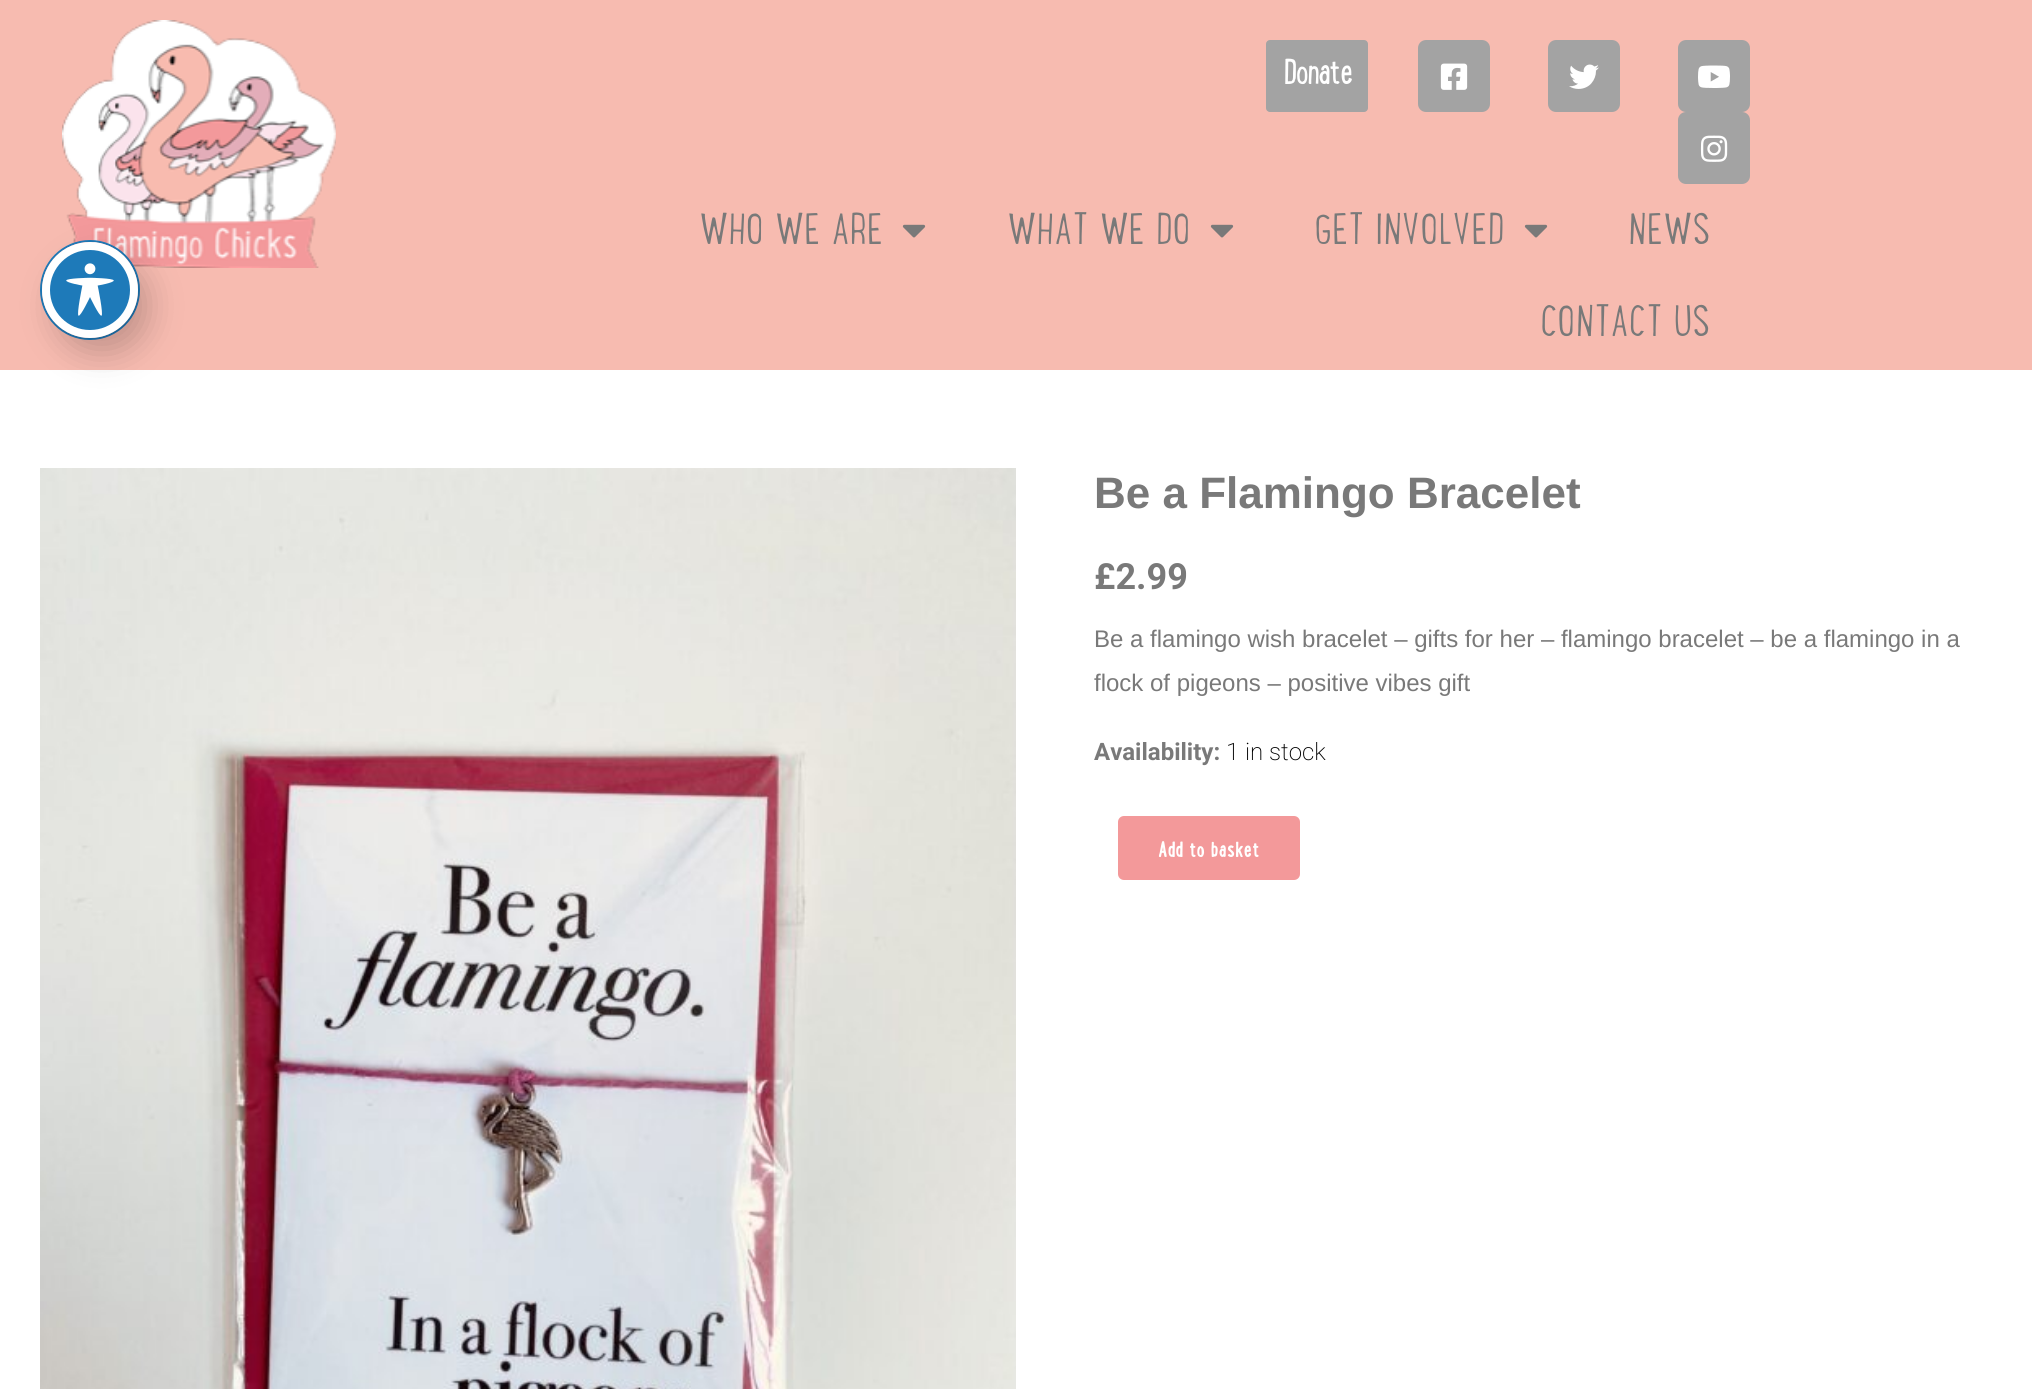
#include <cairo/cairo.h>
#include <math.h>
#include <stddef.h>

static cairo_t *cr;

static void use_color(int r, int g, int b) {
  cairo_set_source_rgb(cr, r / 255.0, g / 255.0, b / 255.0);
}

static void text(double x, double y, const char *s, const char *family, double size, int italic, int bold, int r, int g, int b) {
  cairo_select_font_face(cr, family, italic ? CAIRO_FONT_SLANT_ITALIC : CAIRO_FONT_SLANT_NORMAL,
    bold ? CAIRO_FONT_WEIGHT_BOLD : CAIRO_FONT_WEIGHT_NORMAL);
  cairo_set_font_size(cr, size);
  use_color(r, g, b);
  cairo_move_to(cr, x, y);
  cairo_show_text(cr, s);
}

static void box(double x, double y, double w, double h, int r, int g, int b) {
  use_color(r, g, b);
  cairo_rectangle(cr, x, y, w, h);
  cairo_fill(cr);
}

static void round_rect(double x, double y, double w, double h, double r) {
  cairo_new_sub_path(cr);
  cairo_arc(cr, x + w - r, y + h - r, r, 0, M_PI / 2);
  cairo_arc(cr, x + r, y + h - r, r, M_PI / 2, M_PI);
  cairo_arc(cr, x + r, y + r, r, M_PI, 1.5 * M_PI);
  cairo_arc(cr, x + w - r, y + r, r, 1.5 * M_PI, 2 * M_PI);
  cairo_close_path(cr);
}

static void shadow(double x, double y, double w, double h, double r, double blur, double alpha) {
  cairo_push_group_with_content(cr, CAIRO_CONTENT_ALPHA);
  cairo_set_operator(cr, CAIRO_OPERATOR_SOURCE);
  for (int i = 15; i >= -15 && fmin(w, h) + blur * i / 3 > 0; i -= 2) {
    double e = blur * i / 6;
    cairo_set_source_rgba(cr, 0, 0, 0, alpha * erfc((i - 1) / 8.5) / 2);
    round_rect(x - e, y - e, w + 2 * e, h + 2 * e, fmax(0, fmin(r + e + blur * .6, fmin(w, h) / 2 + e)));
    cairo_fill(cr);
  }
  cairo_pattern_t *soft = cairo_pop_group(cr);
  cairo_mask(cr, soft);
  cairo_pattern_destroy(soft);
}

static void picture(const char *path, double x, double y, double w, double h) {
  cairo_surface_t *image = cairo_image_surface_create_from_png(path);
  cairo_save(cr);
  cairo_set_source_surface(cr, image, x, y);
  cairo_rectangle(cr, x, y, w, h);
  cairo_fill(cr);
  cairo_restore(cr);
  cairo_surface_destroy(image);
}

static void draw(void) {
  use_color(255, 255, 255);
  cairo_paint(cr);
  box(0, 0, 2032, 370, 247, 187, 176);
  picture("img_02.png", 62, 20, 274, 248);
  cairo_arc(cr, 90, 290, 49, 0, 2 * M_PI);
  use_color(30, 122, 185);
  cairo_stroke(cr);
  use_color(0, 0, 0);
  shadow(54, 258, 96, 96, 48, 16, 0.2);
  use_color(30, 122, 185);
  cairo_arc(cr, 90, 290, 44, 0, 2 * M_PI);
  cairo_fill_preserve(cr);
  use_color(255, 255, 255);
  cairo_set_line_width(cr, 8);
  cairo_stroke(cr);
  picture("img_01.png", 66, 263, 48, 53);
  use_color(163, 163, 163);
  round_rect(1266, 40, 102, 72, 4);
  cairo_fill(cr);
  round_rect(1418, 40, 72, 72, 8);
  cairo_fill(cr);
  picture("img_03.png", 1440, 63, 28, 27);
  round_rect(1548, 40, 72, 72, 8);
  cairo_fill(cr);
  picture("img_04.png", 1569, 64, 30, 25);
  round_rect(1678, 40, 72, 72, 8);
  cairo_fill(cr);
  picture("img_05.png", 1698, 65, 32, 23);
  round_rect(1678, 112, 72, 72, 8);
  cairo_fill(cr);
  picture("img_06.png", 1700, 135, 28, 27);
  picture("img_07.png", 902, 224, 24, 14);
  picture("img_07.png", 1210, 224, 24, 14);
  picture("img_07.png", 1524, 224, 24, 14);
  picture("img_08.png", 40, 468, 976, 921);
  use_color(243, 153, 154);
  round_rect(1118, 816, 182, 64, 6);
  cairo_fill(cr);
  text(1284, 84, "Donate", "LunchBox", 36, 0, 1, 255, 255, 255);
  text(699, 244, "WHO WE ARE", "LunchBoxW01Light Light", 38.5, 0, 0, 121, 121, 121);
  text(1007, 244, "WHAT WE DO", "LunchBoxW01Light Light", 38.5, 0, 0, 121, 121, 121);
  text(1314, 244, "GET INVOLVED", "LunchBoxW01Light Light", 38.5, 0, 0, 121, 121, 121);
  text(1628, 244, "NEWS", "LunchBoxW01Light Light", 38.5, 0, 0, 121, 121, 121);
  text(1540, 336, "CONTACT US", "LunchBoxW01Light Light", 38.5, 0, 0, 121, 121, 121);
  text(1094, 508, "Be a Flamingo Bracelet", "Liberation Sans", 44, 0, 1, 121, 121, 121);
  text(1094, 589, "£2.99", "Roboto", 36, 0, 1, 121, 121, 121);
  text(1094, 647, "Be a flamingo wish bracelet – gifts for her – flamingo bracelet – be a flamingo in a", "Liberation Sans", 24, 0, 0, 121, 121, 121);
  text(1094, 691, "flock of pigeons – positive vibes gift", "Liberation Sans", 24, 0, 0, 121, 121, 121);
  text(1094, 760, "Availability:", "Roboto", 24, 0, 1, 121, 121, 121);
  text(1226, 760, "1 in stock", "Roboto ExtraLight", 24, 0, 0, 0, 0, 0);
  text(1158, 857, "Add to basket", "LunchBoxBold", 24, 0, 1, 255, 255, 255);
}

int main(void) {
  cairo_surface_t *surface = cairo_image_surface_create(CAIRO_FORMAT_RGB24, 2032, 1389);
  cr = cairo_create(surface);
  cairo_font_options_t *options = cairo_font_options_create();
  cairo_font_options_set_hint_metrics(options, CAIRO_HINT_METRICS_OFF);
  cairo_font_options_set_hint_style(options, CAIRO_HINT_STYLE_NONE);
  cairo_set_font_options(cr, options);
  cairo_set_miter_limit(cr, 4);
  draw();
  cairo_surface_write_to_png(surface, "out.png");
  cairo_font_options_destroy(options);
  cairo_destroy(cr);
  cairo_surface_destroy(surface);
  return 0;
}
